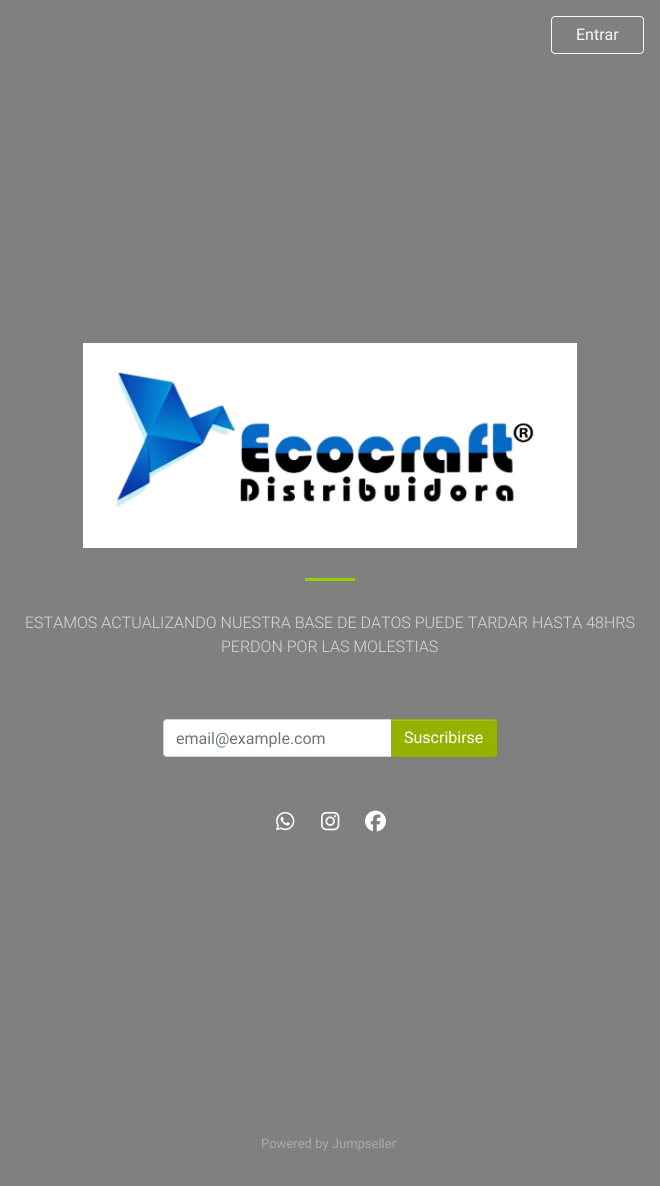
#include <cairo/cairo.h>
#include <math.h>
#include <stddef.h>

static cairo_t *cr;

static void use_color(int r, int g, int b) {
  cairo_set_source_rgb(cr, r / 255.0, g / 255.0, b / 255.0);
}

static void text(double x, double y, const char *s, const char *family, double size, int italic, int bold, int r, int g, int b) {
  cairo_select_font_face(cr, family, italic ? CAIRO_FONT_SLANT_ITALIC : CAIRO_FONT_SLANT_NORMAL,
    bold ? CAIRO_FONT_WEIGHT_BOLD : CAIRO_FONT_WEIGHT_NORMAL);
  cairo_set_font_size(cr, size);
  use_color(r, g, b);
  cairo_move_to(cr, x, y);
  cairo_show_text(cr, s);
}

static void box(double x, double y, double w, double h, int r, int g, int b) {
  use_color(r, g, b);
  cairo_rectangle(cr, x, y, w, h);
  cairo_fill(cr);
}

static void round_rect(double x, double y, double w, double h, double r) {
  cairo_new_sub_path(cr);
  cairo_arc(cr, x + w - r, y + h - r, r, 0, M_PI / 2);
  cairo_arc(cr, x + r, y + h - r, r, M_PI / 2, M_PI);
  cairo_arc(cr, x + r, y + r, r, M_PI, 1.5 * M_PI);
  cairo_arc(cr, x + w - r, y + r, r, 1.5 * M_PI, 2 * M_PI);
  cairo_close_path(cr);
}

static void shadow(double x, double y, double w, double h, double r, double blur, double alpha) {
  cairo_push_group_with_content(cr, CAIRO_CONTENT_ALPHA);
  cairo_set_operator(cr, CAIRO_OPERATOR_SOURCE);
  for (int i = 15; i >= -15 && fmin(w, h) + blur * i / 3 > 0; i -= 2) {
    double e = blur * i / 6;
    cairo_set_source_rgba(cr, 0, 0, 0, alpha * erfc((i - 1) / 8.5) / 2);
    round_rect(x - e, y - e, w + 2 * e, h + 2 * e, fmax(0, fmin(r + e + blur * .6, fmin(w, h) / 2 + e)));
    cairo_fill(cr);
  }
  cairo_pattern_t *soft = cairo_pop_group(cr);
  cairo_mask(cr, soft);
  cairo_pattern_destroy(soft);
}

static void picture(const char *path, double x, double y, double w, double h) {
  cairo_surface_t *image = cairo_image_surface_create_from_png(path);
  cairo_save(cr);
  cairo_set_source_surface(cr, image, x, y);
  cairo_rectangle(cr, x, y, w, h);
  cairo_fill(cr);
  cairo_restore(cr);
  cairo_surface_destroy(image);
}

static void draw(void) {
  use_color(128, 128, 128);
  cairo_paint(cr);
  round_rect(551.5, 16.5, 92, 37, 3.5);
  use_color(248, 249, 250);
  cairo_set_line_width(cr, 1);
  cairo_stroke(cr);
  picture("img_01.png", 83, 343, 494, 205);
  box(305, 578, 50, 3, 153, 204, 0);
  use_color(255, 255, 255);
  cairo_new_path(cr);
  cairo_move_to(cr, 167, 719.5);
  cairo_line_to(cr, 391.5, 719.5);
  cairo_line_to(cr, 391.5, 756.5);
  cairo_line_to(cr, 167, 756.5);
  cairo_curve_to(cr, 165, 756.5, 163.5, 755, 163.5, 753);
  cairo_line_to(cr, 163.5, 723);
  cairo_curve_to(cr, 163.5, 721, 165, 719.5, 167, 719.5);
  cairo_close_path(cr);
  cairo_fill_preserve(cr);
  use_color(206, 212, 218);
  cairo_stroke(cr);
  use_color(0, 0, 0);
  shadow(391, 720, 106, 38, 4, 0.5, 0.07);
  use_color(149, 178, 0);
  cairo_new_path(cr);
  cairo_move_to(cr, 391, 719);
  cairo_line_to(cr, 493, 719);
  cairo_curve_to(cr, 495, 719, 497, 721, 497, 723);
  cairo_line_to(cr, 497, 753);
  cairo_curve_to(cr, 497, 755, 495, 757, 493, 757);
  cairo_line_to(cr, 391, 757);
  cairo_close_path(cr);
  cairo_fill(cr);
  use_color(165, 190, 38);
  cairo_new_path(cr);
  cairo_move_to(cr, 392, 721);
  cairo_line_to(cr, 493, 721);
  cairo_curve_to(cr, 495, 721, 496, 722, 496, 724);
  cairo_line_to(cr, 496, 723);
  cairo_curve_to(cr, 496, 721, 495, 720, 493, 720);
  cairo_line_to(cr, 392, 720);
  cairo_close_path(cr);
  cairo_fill(cr);
  cairo_new_path(cr);
  cairo_move_to(cr, 391.5, 719.5);
  cairo_line_to(cr, 493, 719.5);
  cairo_curve_to(cr, 495, 719.5, 496.5, 721, 496.5, 723);
  cairo_line_to(cr, 496.5, 753);
  cairo_curve_to(cr, 496.5, 755, 495, 756.5, 493, 756.5);
  cairo_line_to(cr, 391.5, 756.5);
  cairo_close_path(cr);
  use_color(149, 178, 0);
  cairo_stroke(cr);
  picture("img_02.png", 276, 812, 19, 19);
  picture("img_03.png", 321, 811, 19, 20);
  picture("img_04.png", 365, 810, 21, 22);
  text(576, 40, "Entrar", "Roboto", 16, 0, 0, 248, 249, 250);
  text(25, 628, "ESTAMOS ACTUALIZANDO NUESTRA BASE DE DATOS PUEDE TARDAR HASTA 48HRS", "Roboto Light", 16, 0, 0, 217, 217, 217);
  text(221, 652, "PERDON POR LAS MOLESTIAS", "Roboto Light", 16, 0, 0, 217, 217, 217);
  text(176, 744, "email@example.com", "Roboto", 16, 0, 0, 108, 117, 125);
  text(404, 743, "Suscribirse", "Roboto", 16, 0, 0, 255, 255, 255);
  text(261, 1148, "Powered by Jumpseller", "Roboto", 13, 0, 0, 170, 170, 170);
}

int main(void) {
  cairo_surface_t *surface = cairo_image_surface_create(CAIRO_FORMAT_RGB24, 660, 1186);
  cr = cairo_create(surface);
  cairo_font_options_t *options = cairo_font_options_create();
  cairo_font_options_set_hint_metrics(options, CAIRO_HINT_METRICS_OFF);
  cairo_font_options_set_hint_style(options, CAIRO_HINT_STYLE_NONE);
  cairo_set_font_options(cr, options);
  cairo_set_miter_limit(cr, 4);
  draw();
  cairo_surface_write_to_png(surface, "out.png");
  cairo_font_options_destroy(options);
  cairo_destroy(cr);
  cairo_surface_destroy(surface);
  return 0;
}
